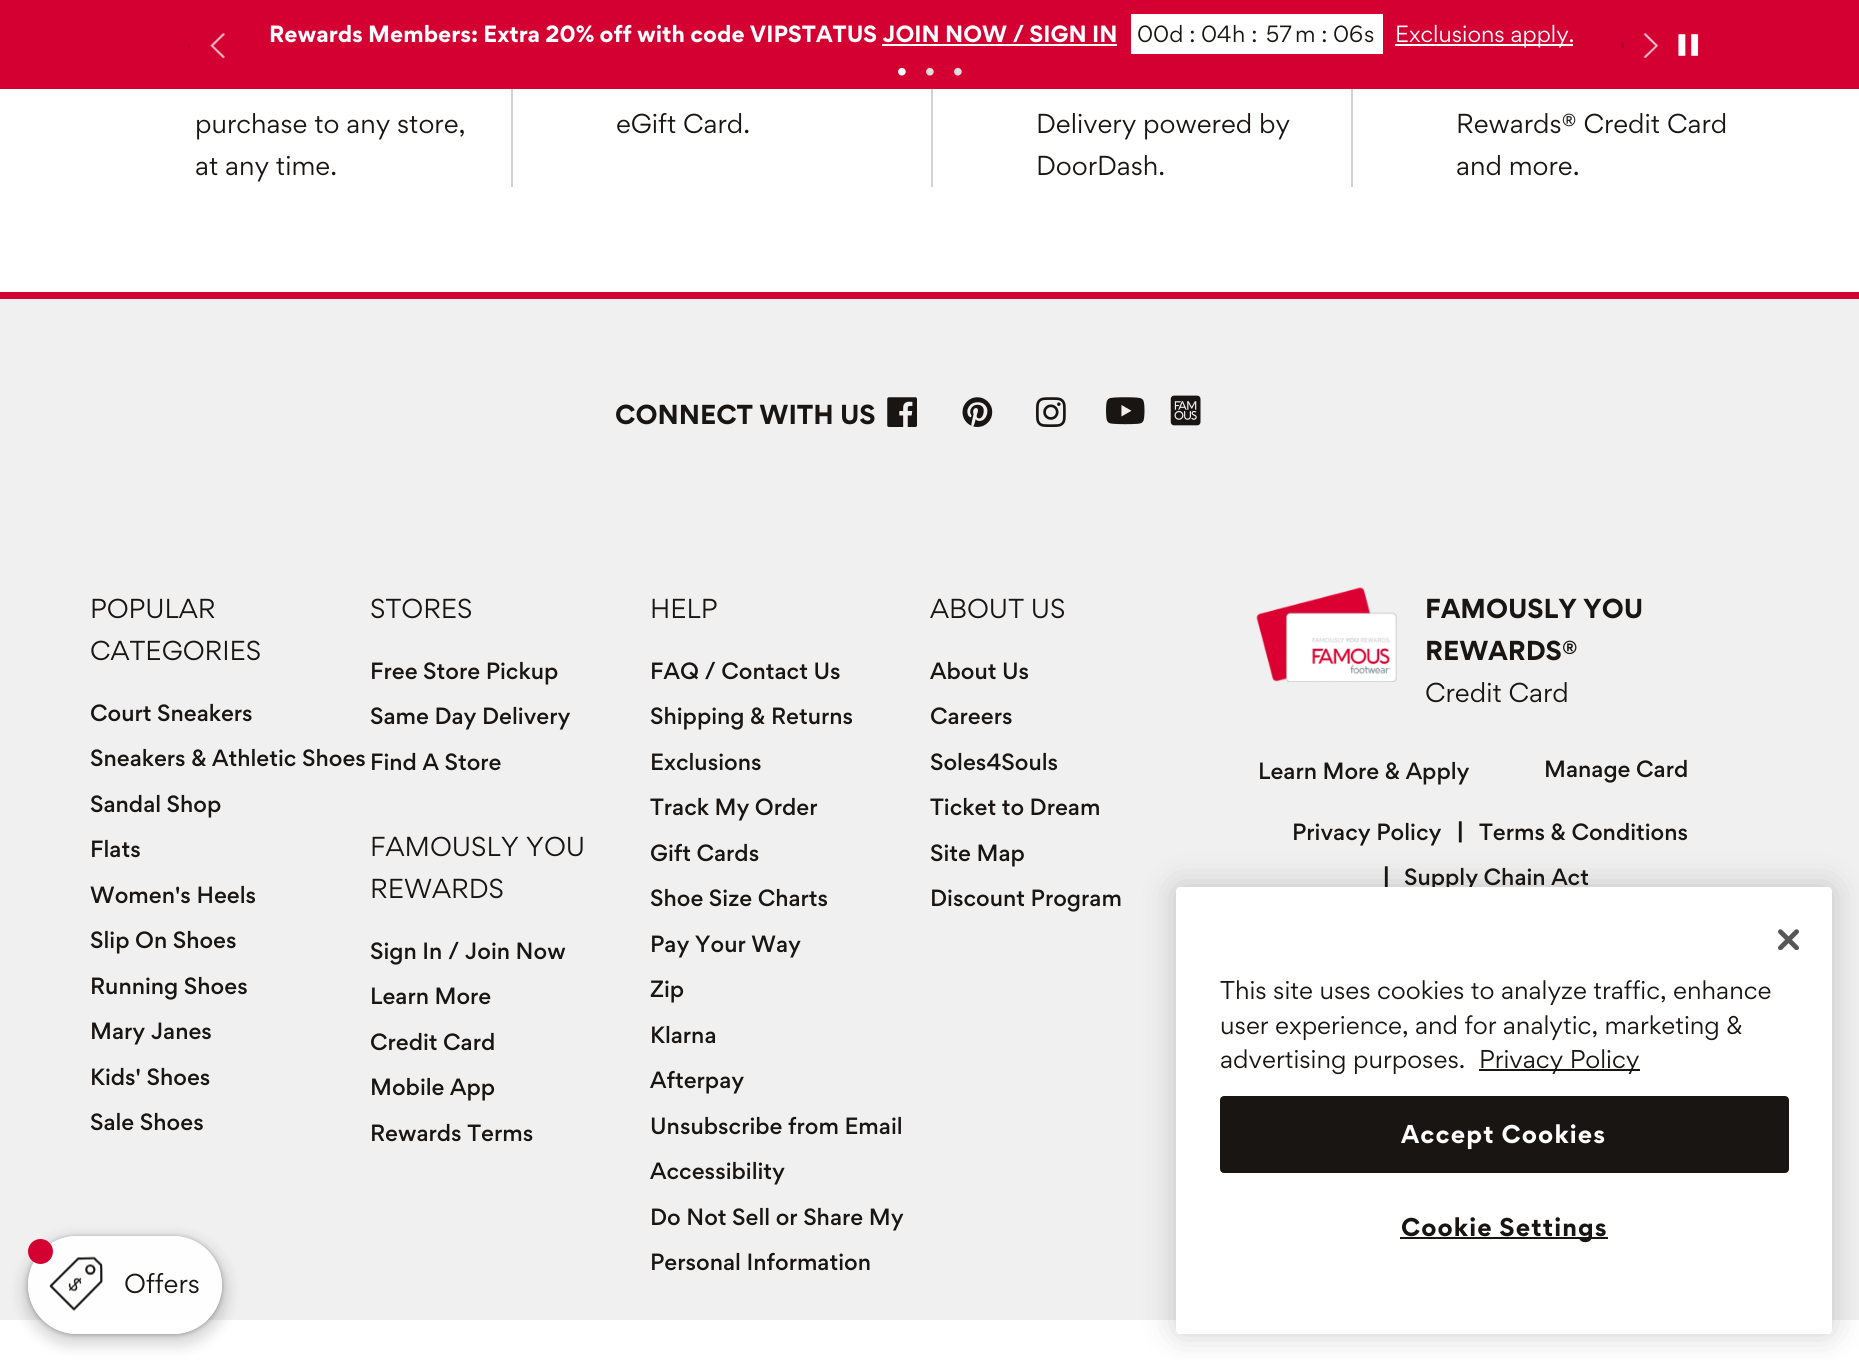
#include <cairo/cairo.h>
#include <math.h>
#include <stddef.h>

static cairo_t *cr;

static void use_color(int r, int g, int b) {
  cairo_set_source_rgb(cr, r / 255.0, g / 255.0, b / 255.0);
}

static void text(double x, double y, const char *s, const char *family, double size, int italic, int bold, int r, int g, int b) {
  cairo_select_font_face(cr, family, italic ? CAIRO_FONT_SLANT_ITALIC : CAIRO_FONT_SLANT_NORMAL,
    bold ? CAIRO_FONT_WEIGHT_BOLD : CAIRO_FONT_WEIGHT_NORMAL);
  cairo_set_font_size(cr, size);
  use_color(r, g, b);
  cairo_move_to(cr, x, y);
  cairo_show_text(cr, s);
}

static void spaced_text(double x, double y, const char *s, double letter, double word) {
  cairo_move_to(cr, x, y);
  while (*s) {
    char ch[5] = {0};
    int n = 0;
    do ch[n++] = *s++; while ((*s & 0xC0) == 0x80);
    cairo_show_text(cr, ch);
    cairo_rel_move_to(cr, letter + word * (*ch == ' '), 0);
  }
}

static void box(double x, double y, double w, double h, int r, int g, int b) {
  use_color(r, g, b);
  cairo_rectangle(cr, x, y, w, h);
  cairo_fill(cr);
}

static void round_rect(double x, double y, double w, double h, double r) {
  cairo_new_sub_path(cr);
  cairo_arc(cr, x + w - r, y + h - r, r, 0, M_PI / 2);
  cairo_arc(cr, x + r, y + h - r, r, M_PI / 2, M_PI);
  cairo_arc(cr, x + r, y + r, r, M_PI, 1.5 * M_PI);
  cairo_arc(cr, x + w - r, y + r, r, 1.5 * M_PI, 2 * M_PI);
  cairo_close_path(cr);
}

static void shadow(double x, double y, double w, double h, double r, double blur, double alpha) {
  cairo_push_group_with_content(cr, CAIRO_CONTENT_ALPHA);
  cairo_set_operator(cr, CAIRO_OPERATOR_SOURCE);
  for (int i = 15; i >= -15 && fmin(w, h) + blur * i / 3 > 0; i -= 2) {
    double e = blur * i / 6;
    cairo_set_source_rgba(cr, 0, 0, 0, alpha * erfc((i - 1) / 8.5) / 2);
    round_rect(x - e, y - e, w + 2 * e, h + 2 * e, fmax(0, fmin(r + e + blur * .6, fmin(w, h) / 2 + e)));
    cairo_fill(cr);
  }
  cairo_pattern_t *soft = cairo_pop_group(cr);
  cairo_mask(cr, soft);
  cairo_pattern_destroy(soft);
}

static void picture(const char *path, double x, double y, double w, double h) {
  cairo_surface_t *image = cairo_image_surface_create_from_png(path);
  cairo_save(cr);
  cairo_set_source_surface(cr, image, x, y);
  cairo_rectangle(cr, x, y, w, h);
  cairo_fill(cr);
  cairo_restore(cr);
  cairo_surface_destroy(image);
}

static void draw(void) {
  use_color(255, 255, 255);
  cairo_paint(cr);
  box(0, 0, 1859, 89, 213, 0, 50);
  box(882, 44, 235, 2, 255, 255, 255);
  box(1131, 14, 252, 40, 255, 255, 255);
  box(1395, 44, 178, 2, 255, 255, 255);
  picture("img_01.png", 1678, 34, 21, 22);
  picture("img_02.png", 188, 43, 2, 5);
  picture("img_03.png", 210, 33, 15, 25);
  box(1621, 43, 3, 5, 170, 0, 40);
  picture("img_04.png", 1643, 33, 15, 25);
  box(0, 299, 1859, 1021, 240, 240, 240);
  cairo_save(cr);
  cairo_set_fill_rule(cr, CAIRO_FILL_RULE_EVEN_ODD);
  cairo_new_path(cr);
  cairo_move_to(cr, 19, 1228);
  cairo_line_to(cr, 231, 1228);
  cairo_line_to(cr, 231, 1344);
  cairo_line_to(cr, 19, 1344);
  cairo_close_path(cr);
  cairo_move_to(cr, 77, 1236);
  cairo_line_to(cr, 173, 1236);
  cairo_curve_to(cr, 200, 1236, 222, 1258, 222, 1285);
  cairo_curve_to(cr, 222, 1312, 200, 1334, 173, 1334);
  cairo_line_to(cr, 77, 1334);
  cairo_curve_to(cr, 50, 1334, 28, 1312, 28, 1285);
  cairo_curve_to(cr, 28, 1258, 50, 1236, 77, 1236);
  cairo_close_path(cr);
  cairo_clip(cr);
  use_color(0, 0, 0);
  shadow(28, 1237, 194, 98, 49, 2.5, 0.3);
  cairo_restore(cr);
  cairo_save(cr);
  cairo_set_fill_rule(cr, CAIRO_FILL_RULE_EVEN_ODD);
  cairo_new_path(cr);
  cairo_move_to(cr, 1, 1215);
  cairo_line_to(cr, 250, 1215);
  cairo_line_to(cr, 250, 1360);
  cairo_line_to(cr, 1, 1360);
  cairo_close_path(cr);
  cairo_move_to(cr, 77, 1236);
  cairo_line_to(cr, 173, 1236);
  cairo_curve_to(cr, 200, 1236, 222, 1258, 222, 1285);
  cairo_curve_to(cr, 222, 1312, 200, 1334, 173, 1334);
  cairo_line_to(cr, 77, 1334);
  cairo_curve_to(cr, 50, 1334, 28, 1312, 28, 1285);
  cairo_curve_to(cr, 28, 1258, 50, 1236, 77, 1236);
  cairo_close_path(cr);
  cairo_clip(cr);
  use_color(0, 0, 0);
  shadow(23, 1237, 205, 109, 54.5, 7, 0.15);
  cairo_restore(cr);
  cairo_set_source_rgba(cr, 1, 1, 1, 0.95);
  round_rect(28, 1236, 194, 98, 49);
  cairo_fill(cr);
  picture("img_05.png", 49, 1256, 54, 55);
  use_color(213, 0, 50);
  cairo_arc(cr, 40.5, 1251.5, 12.5, 0, 2 * M_PI);
  cairo_fill(cr);
  box(511, 89, 2, 98, 208, 211, 212);
  box(931, 89, 2, 98, 208, 211, 212);
  box(1351, 89, 2, 98, 208, 211, 212);
  box(0, 292, 1859, 7, 213, 0, 50);
  picture("img_06.png", 887, 397, 30, 30);
  picture("img_07.png", 962, 397, 31, 30);
  picture("img_08.png", 1036, 397, 30, 30);
  picture("img_09.png", 1106, 397, 39, 28);
  picture("img_10.png", 1170, 395, 31, 31);
  picture("img_11.png", 1256, 587, 141, 95);
  use_color(0, 0, 0);
  shadow(1176, 887, 656, 447, 4, 16, 0.2);
  text(269, 42, "Rewards Members: Extra 20% off with code VIPSTATUS JOIN NOW / SIGN IN", "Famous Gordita", 21, 0, 1, 255, 255, 255);
  text(1137, 42, "00d :", "Famous Gordita", 21, 0, 0, 24, 21, 19);
  text(1201, 42, "04", "Famous Gordita", 21, 0, 0, 24, 21, 19);
  text(1232, 42, "h :", "Famous Gordita", 21, 0, 0, 24, 21, 19);
  text(1266, 42, "57", "Famous Gordita", 21, 0, 0, 24, 21, 19);
  text(1295, 42, "m :", "Famous Gordita", 21, 0, 0, 24, 21, 19);
  text(1333, 42, "06", "Famous Gordita", 21, 0, 0, 24, 21, 19);
  text(1364, 42, "s", "Famous Gordita", 21, 0, 0, 24, 21, 19);
  text(1395, 42, "Exclusions apply.", "Famous Gordita", 21, 0, 0, 255, 255, 255);
  text(897, 81, "•", "Liberation Sans", 28, 0, 0, 255, 255, 255);
  text(925, 81, "•", "Liberation Sans", 28, 0, 0, 221, 221, 221);
  text(953, 81, "•", "Liberation Sans", 28, 0, 0, 221, 221, 221);
  text(124, 1293, "Offers", "Famous Gordita", 24.5, 0, 0, 24, 21, 19);
  text(195, 133, "purchase to any store,", "Famous Gordita", 24.5, 0, 0, 24, 21, 19);
  text(195, 175, "at any time.", "Famous Gordita", 24.5, 0, 0, 24, 21, 19);
  text(616, 133, "eGift Card.", "Famous Gordita", 24.5, 0, 0, 24, 21, 19);
  text(1036, 133, "Delivery powered by", "Famous Gordita", 24.5, 0, 0, 24, 21, 19);
  text(1036, 175, "DoorDash.", "Famous Gordita", 24.5, 0, 0, 24, 21, 19);
  text(1456, 133, "Rewards® Credit Card", "Famous Gordita", 24.5, 0, 0, 24, 21, 19);
  text(1456, 175, "and more.", "Famous Gordita", 24.5, 0, 0, 24, 21, 19);
  text(615, 424, "CONNECT WITH US", "Famous Gordita", 24.5, 0, 1, 24, 21, 19);
  text(90, 618, "POPULAR", "Famous Gordita", 24.5, 0, 0, 24, 21, 19);
  text(90, 660, "CATEGORIES", "Famous Gordita", 24.5, 0, 0, 24, 21, 19);
  text(90, 721, "Court Sneakers", "Famous Gordita Medium", 21, 0, 0, 24, 21, 19);
  text(90, 766, "Sneakers & Athletic Shoes", "Famous Gordita Medium", 21, 0, 0, 24, 21, 19);
  text(90, 812, "Sandal Shop", "Famous Gordita Medium", 21, 0, 0, 24, 21, 19);
  text(90, 857, "Flats", "Famous Gordita Medium", 21, 0, 0, 24, 21, 19);
  text(90, 903, "Women's Heels", "Famous Gordita Medium", 21, 0, 0, 24, 21, 19);
  text(90, 948, "Slip On Shoes", "Famous Gordita Medium", 21, 0, 0, 24, 21, 19);
  text(90, 994, "Running Shoes", "Famous Gordita Medium", 21, 0, 0, 24, 21, 19);
  text(90, 1039, "Mary Janes", "Famous Gordita Medium", 21, 0, 0, 24, 21, 19);
  text(90, 1085, "Kids' Shoes", "Famous Gordita Medium", 21, 0, 0, 24, 21, 19);
  text(90, 1130, "Sale Shoes", "Famous Gordita Medium", 21, 0, 0, 24, 21, 19);
  text(370, 618, "STORES", "Famous Gordita", 24.5, 0, 0, 24, 21, 19);
  text(370, 679, "Free Store Pickup", "Famous Gordita Medium", 21, 0, 0, 24, 21, 19);
  text(370, 724, "Same Day Delivery", "Famous Gordita Medium", 21, 0, 0, 24, 21, 19);
  text(370, 770, "Find A Store", "Famous Gordita Medium", 21, 0, 0, 24, 21, 19);
  text(370, 856, "FAMOUSLY YOU", "Famous Gordita", 24.5, 0, 0, 24, 21, 19);
  text(370, 898, "REWARDS", "Famous Gordita", 24.5, 0, 0, 24, 21, 19);
  text(370, 959, "Sign In / Join Now", "Famous Gordita Medium", 21, 0, 0, 24, 21, 19);
  text(370, 1004, "Learn More", "Famous Gordita Medium", 21, 0, 0, 24, 21, 19);
  text(370, 1050, "Credit Card", "Famous Gordita Medium", 21, 0, 0, 24, 21, 19);
  text(370, 1095, "Mobile App", "Famous Gordita Medium", 21, 0, 0, 24, 21, 19);
  text(370, 1141, "Rewards Terms", "Famous Gordita Medium", 21, 0, 0, 24, 21, 19);
  text(650, 618, "HELP", "Famous Gordita", 24.5, 0, 0, 24, 21, 19);
  text(650, 679, "FAQ / Contact Us", "Famous Gordita Medium", 21, 0, 0, 24, 21, 19);
  text(650, 724, "Shipping & Returns", "Famous Gordita Medium", 21, 0, 0, 24, 21, 19);
  text(650, 770, "Exclusions", "Famous Gordita Medium", 21, 0, 0, 24, 21, 19);
  text(650, 815, "Track My Order", "Famous Gordita Medium", 21, 0, 0, 24, 21, 19);
  text(650, 861, "Gift Cards", "Famous Gordita Medium", 21, 0, 0, 24, 21, 19);
  text(650, 906, "Shoe Size Charts", "Famous Gordita Medium", 21, 0, 0, 24, 21, 19);
  text(650, 952, "Pay Your Way", "Famous Gordita Medium", 21, 0, 0, 24, 21, 19);
  text(650, 997, "Zip", "Famous Gordita Medium", 21, 0, 0, 24, 21, 19);
  text(650, 1043, "Klarna", "Famous Gordita Medium", 21, 0, 0, 24, 21, 19);
  text(650, 1088, "Afterpay", "Famous Gordita Medium", 21, 0, 0, 24, 21, 19);
  text(650, 1134, "Unsubscribe from Email", "Famous Gordita Medium", 21, 0, 0, 24, 21, 19);
  text(650, 1179, "Accessibility", "Famous Gordita Medium", 21, 0, 0, 24, 21, 19);
  text(650, 1225, "Do Not Sell or Share My", "Famous Gordita Medium", 21, 0, 0, 24, 21, 19);
  text(650, 1270, "Personal Information", "Famous Gordita Medium", 21, 0, 0, 24, 21, 19);
  text(930, 618, "ABOUT US", "Famous Gordita", 24.5, 0, 0, 24, 21, 19);
  text(930, 679, "About Us", "Famous Gordita Medium", 21, 0, 0, 24, 21, 19);
  text(930, 724, "Careers", "Famous Gordita Medium", 21, 0, 0, 24, 21, 19);
  text(930, 770, "Soles4Souls", "Famous Gordita Medium", 21, 0, 0, 24, 21, 19);
  text(930, 815, "Ticket to Dream", "Famous Gordita Medium", 21, 0, 0, 24, 21, 19);
  text(930, 861, "Site Map", "Famous Gordita Medium", 21, 0, 0, 24, 21, 19);
  text(930, 906, "Discount Program", "Famous Gordita Medium", 21, 0, 0, 24, 21, 19);
  text(1425, 618, "FAMOUSLY YOU", "Famous Gordita", 24.5, 0, 1, 24, 21, 19);
  text(1425, 660, "REWARDS®", "Famous Gordita", 24.5, 0, 1, 24, 21, 19);
  text(1425, 702, "Credit Card", "Famous Gordita", 24.5, 0, 0, 24, 21, 19);
  text(1258, 779, "Learn More & Apply", "Famous Gordita Medium", 21, 0, 0, 24, 21, 19);
  text(1544, 777, "Manage Card", "Famous Gordita Medium", 21, 0, 0, 24, 21, 19);
  text(1292, 840, "Privacy Policy", "Famous Gordita Medium", 21, 0, 0, 24, 21, 19);
  text(1457, 840, "|", "Famous Gordita", 21, 0, 1, 24, 21, 19);
  text(1479, 840, "Terms & Conditions", "Famous Gordita Medium", 21, 0, 0, 24, 21, 19);
  text(1383, 885, "|", "Famous Gordita", 21, 0, 1, 24, 21, 19);
  text(1404, 885, "Supply Chain Act", "Famous Gordita Medium", 21, 0, 0, 24, 21, 19);
  use_color(255, 255, 255);
  round_rect(1176, 887, 656, 447, 4);
  cairo_fill(cr);
  picture("img_12.png", 1778, 929, 21, 21);
  text(1220, 999, "This site uses cookies to analyze traffic, enhance", "Famous Gordita", 23, 0, 0, 24, 21, 19);
  text(1220, 1034, "user experience, and for analytic, marketing &", "Famous Gordita", 23, 0, 0, 24, 21, 19);
  text(1220, 1068, "advertising purposes.", "Famous Gordita", 23, 0, 0, 24, 21, 19);
  box(1479, 1069, 161, 2, 24, 21, 19);
  text(1479, 1068, "Privacy Policy", "Famous Gordita", 23, 0, 0, 24, 21, 19);
  round_rect(1221, 1097, 567, 75, 3);
  cairo_fill_preserve(cr);
  cairo_stroke(cr);
  cairo_select_font_face(cr, "Famous Gordita", CAIRO_FONT_SLANT_NORMAL, CAIRO_FONT_WEIGHT_BOLD);
  use_color(255, 255, 255);
  spaced_text(1401, 1143, "Accept Cookies", 1.1, 0);
  box(1400, 1237, 208, 2, 24, 21, 19);
  spaced_text(1401, 1236, "Cookie Settings", 1.1, 0);
}

int main(void) {
  cairo_surface_t *surface = cairo_image_surface_create(CAIRO_FORMAT_RGB24, 1859, 1360);
  cr = cairo_create(surface);
  cairo_font_options_t *options = cairo_font_options_create();
  cairo_font_options_set_hint_metrics(options, CAIRO_HINT_METRICS_OFF);
  cairo_font_options_set_hint_style(options, CAIRO_HINT_STYLE_NONE);
  cairo_set_font_options(cr, options);
  cairo_set_miter_limit(cr, 4);
  draw();
  cairo_surface_write_to_png(surface, "out.png");
  cairo_font_options_destroy(options);
  cairo_destroy(cr);
  cairo_surface_destroy(surface);
  return 0;
}
